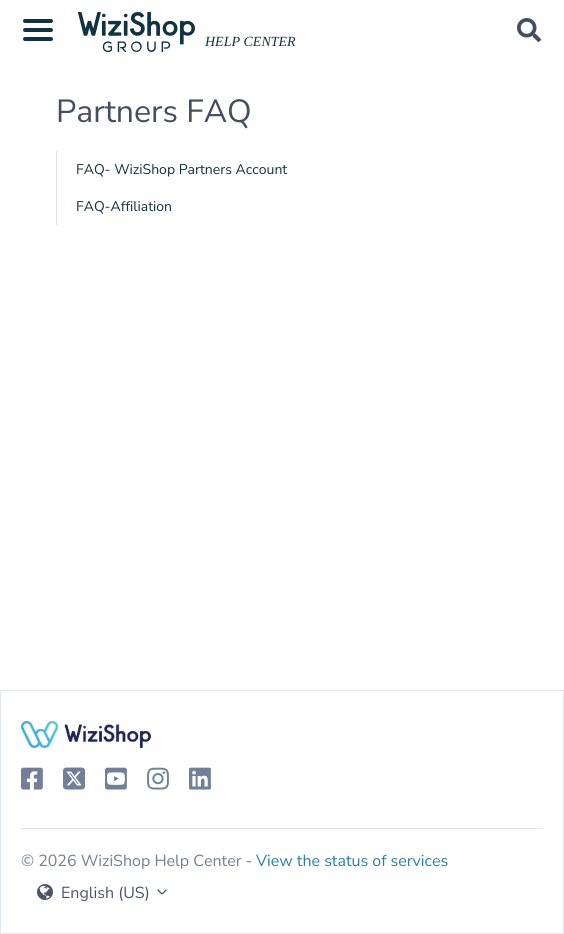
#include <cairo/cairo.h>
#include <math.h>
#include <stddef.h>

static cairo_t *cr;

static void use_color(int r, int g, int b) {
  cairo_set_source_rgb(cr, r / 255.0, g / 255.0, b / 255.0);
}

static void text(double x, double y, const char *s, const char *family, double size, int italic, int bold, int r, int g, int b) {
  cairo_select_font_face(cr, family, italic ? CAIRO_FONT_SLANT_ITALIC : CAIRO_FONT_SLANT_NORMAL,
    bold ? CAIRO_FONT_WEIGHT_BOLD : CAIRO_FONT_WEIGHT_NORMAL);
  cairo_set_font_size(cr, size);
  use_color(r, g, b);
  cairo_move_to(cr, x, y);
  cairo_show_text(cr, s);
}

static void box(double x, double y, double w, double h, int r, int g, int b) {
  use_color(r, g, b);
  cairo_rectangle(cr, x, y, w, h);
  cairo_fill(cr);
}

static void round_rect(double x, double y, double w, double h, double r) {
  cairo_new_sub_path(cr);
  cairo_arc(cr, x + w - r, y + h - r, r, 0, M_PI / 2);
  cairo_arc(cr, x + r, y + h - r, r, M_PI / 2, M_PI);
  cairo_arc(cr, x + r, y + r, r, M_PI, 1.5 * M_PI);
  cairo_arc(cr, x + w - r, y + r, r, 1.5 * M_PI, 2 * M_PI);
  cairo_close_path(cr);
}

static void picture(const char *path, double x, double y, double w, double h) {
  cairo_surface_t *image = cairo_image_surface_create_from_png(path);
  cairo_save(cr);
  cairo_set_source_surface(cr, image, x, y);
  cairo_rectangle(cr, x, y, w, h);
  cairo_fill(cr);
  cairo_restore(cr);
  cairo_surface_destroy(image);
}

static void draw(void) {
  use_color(255, 255, 255);
  cairo_paint(cr);
  use_color(16, 51, 63);
  round_rect(23, 19, 30, 4, 2);
  cairo_fill(cr);
  round_rect(23, 28, 30, 4, 2);
  cairo_fill(cr);
  round_rect(23, 37, 30, 4, 2);
  cairo_fill(cr);
  picture("img_01.png", 78, 12, 117, 40);
  picture("img_02.png", 517, 18, 24, 24);
  box(56, 151, 1, 74, 222, 222, 222);
  cairo_rectangle(cr, 0.5, 690.5, 563, 243);
  use_color(225, 231, 239);
  cairo_set_line_width(cr, 1);
  cairo_stroke(cr);
  box(21, 828, 522, 1, 225, 231, 239);
  picture("img_03.png", 21, 721, 130, 27);
  picture("img_04.png", 21, 767, 22, 23);
  picture("img_05.png", 63, 767, 22, 23);
  picture("img_06.png", 105, 767, 22, 23);
  picture("img_07.png", 147, 767, 22, 23);
  picture("img_08.png", 189, 767, 22, 23);
  picture("img_09.png", 37, 884, 16, 16);
  cairo_new_path(cr);
  cairo_move_to(cr, 158, 890);
  cairo_curve_to(cr, 163, 895, 161, 895, 166, 890);
  use_color(74, 85, 104);
  cairo_set_line_width(cr, 1.3);
  cairo_set_line_cap(cr, CAIRO_LINE_CAP_ROUND);
  cairo_stroke(cr);
  text(205, 46, "HELP CENTER", "Liberation Serif", 14, 1, 0, 16, 51, 63);
  text(56, 122, "Partners FAQ", "Nunito Sans", 32, 0, 0, 67, 79, 97);
  text(76, 174, "FAQ- WiziShop Partners Account", "Nunito Sans", 14, 0, 0, 16, 51, 63);
  text(76, 211, "FAQ-Affiliation", "Nunito Sans", 14, 0, 0, 16, 51, 63);
  text(21, 866, "© 2026 WiziShop Help Center -", "Nunito Sans", 16, 0, 0, 113, 128, 150);
  text(256, 866, "View the status of services", "Nunito Sans", 16, 0, 0, 45, 127, 163);
  text(61, 898, "English (US)", "Nunito Sans", 16, 0, 0, 74, 85, 104);
}

int main(void) {
  cairo_surface_t *surface = cairo_image_surface_create(CAIRO_FORMAT_RGB24, 564, 934);
  cr = cairo_create(surface);
  cairo_font_options_t *options = cairo_font_options_create();
  cairo_font_options_set_hint_metrics(options, CAIRO_HINT_METRICS_OFF);
  cairo_font_options_set_hint_style(options, CAIRO_HINT_STYLE_NONE);
  cairo_set_font_options(cr, options);
  cairo_set_miter_limit(cr, 4);
  draw();
  cairo_surface_write_to_png(surface, "out.png");
  cairo_font_options_destroy(options);
  cairo_destroy(cr);
  cairo_surface_destroy(surface);
  return 0;
}
